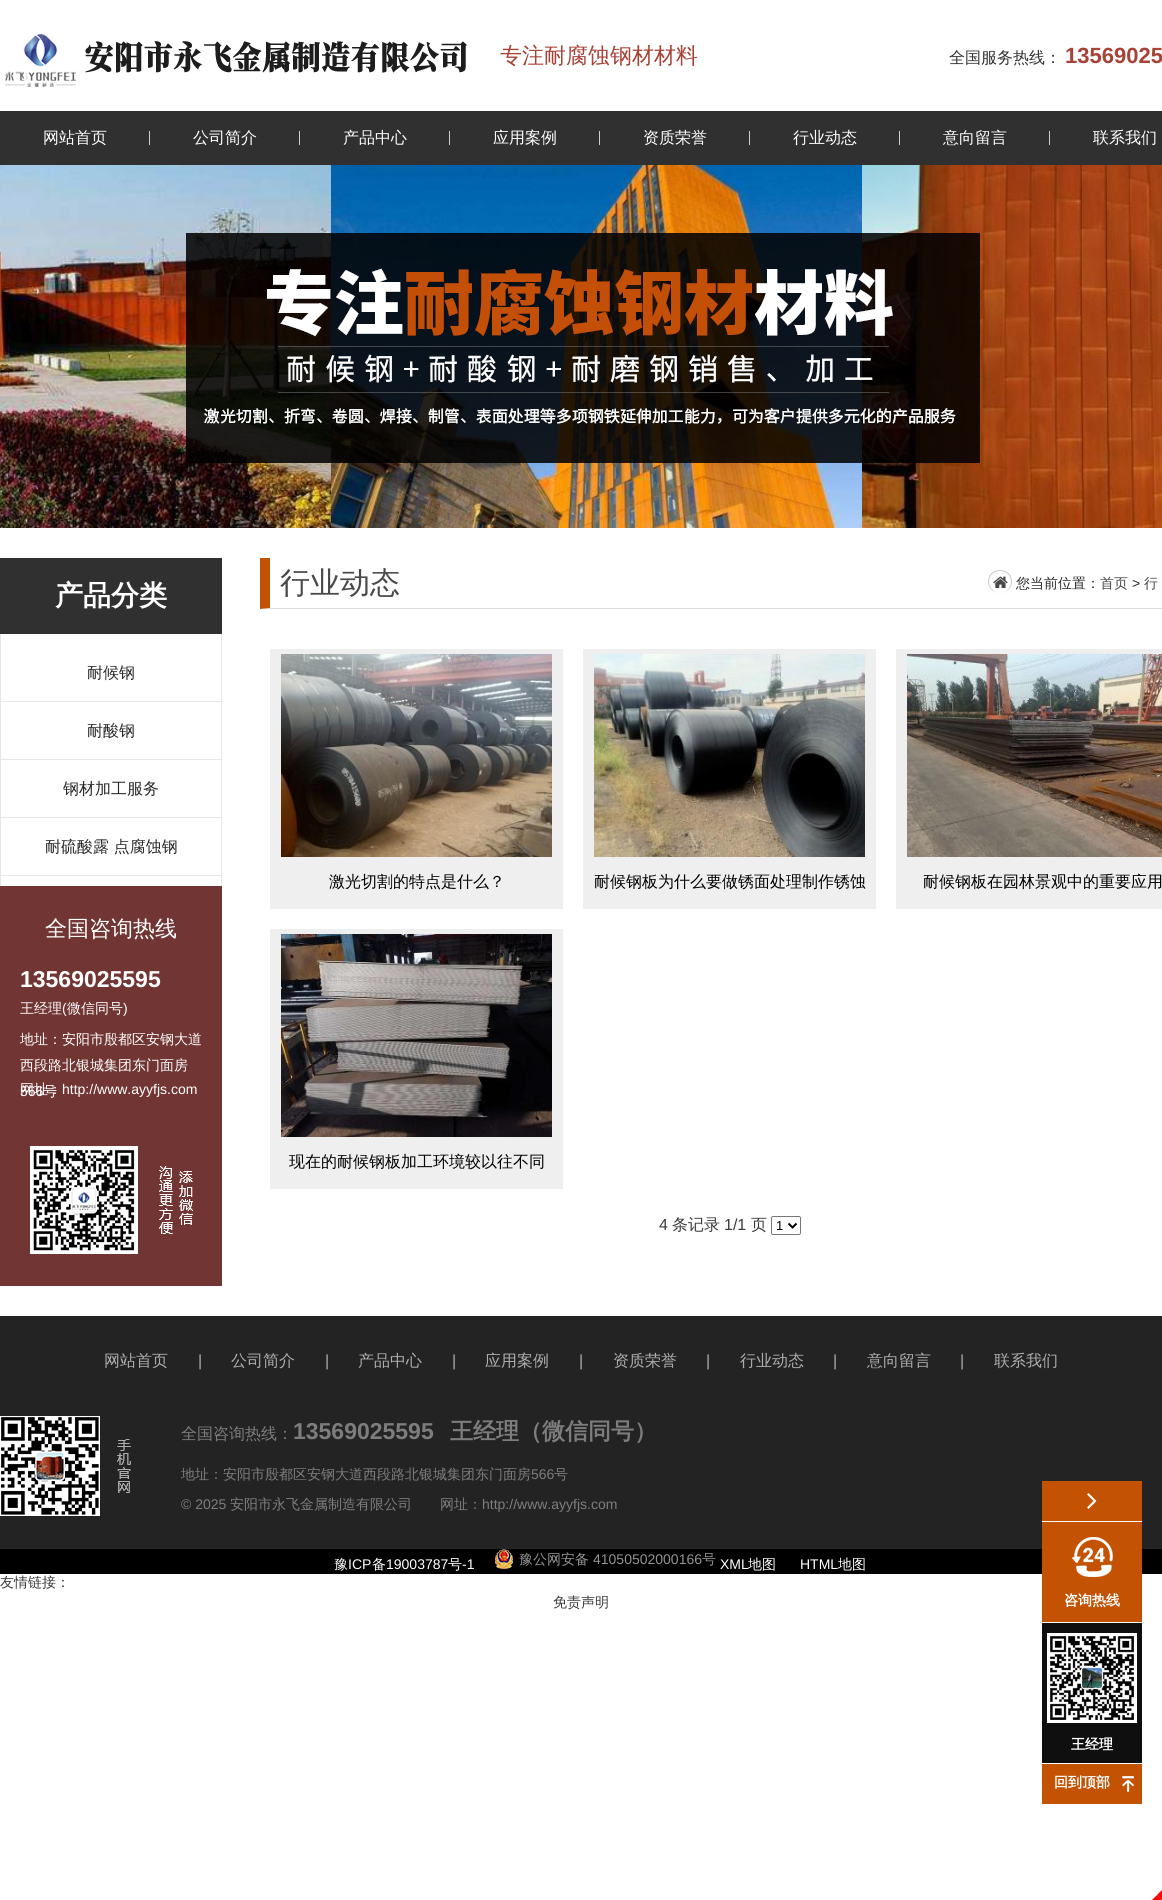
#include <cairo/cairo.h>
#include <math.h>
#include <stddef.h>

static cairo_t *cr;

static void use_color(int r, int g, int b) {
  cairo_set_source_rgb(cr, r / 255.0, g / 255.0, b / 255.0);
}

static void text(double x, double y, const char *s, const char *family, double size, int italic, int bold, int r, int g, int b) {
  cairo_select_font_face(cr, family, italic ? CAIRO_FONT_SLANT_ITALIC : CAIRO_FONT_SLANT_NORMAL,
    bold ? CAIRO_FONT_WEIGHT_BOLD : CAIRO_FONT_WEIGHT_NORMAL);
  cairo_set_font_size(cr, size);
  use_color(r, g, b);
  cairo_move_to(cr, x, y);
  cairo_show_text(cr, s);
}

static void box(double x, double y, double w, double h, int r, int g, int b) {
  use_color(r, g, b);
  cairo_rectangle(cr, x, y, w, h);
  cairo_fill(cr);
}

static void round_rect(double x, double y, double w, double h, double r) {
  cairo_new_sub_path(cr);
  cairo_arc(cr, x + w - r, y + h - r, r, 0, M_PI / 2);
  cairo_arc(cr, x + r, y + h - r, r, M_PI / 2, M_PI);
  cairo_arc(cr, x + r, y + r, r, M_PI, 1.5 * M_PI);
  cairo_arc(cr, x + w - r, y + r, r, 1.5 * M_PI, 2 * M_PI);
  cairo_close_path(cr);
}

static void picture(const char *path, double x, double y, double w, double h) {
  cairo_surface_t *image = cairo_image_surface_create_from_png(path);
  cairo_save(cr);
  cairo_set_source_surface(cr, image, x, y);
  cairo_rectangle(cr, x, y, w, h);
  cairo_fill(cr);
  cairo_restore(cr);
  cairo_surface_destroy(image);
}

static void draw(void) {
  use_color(255, 255, 255);
  cairo_paint(cr);
  picture("img_01.png", 5, 34, 462, 53);
  box(0, 111, 1162, 54, 48, 48, 48);
  box(149, 131, 1, 14, 206, 206, 206);
  box(299, 131, 1, 14, 206, 206, 206);
  box(449, 131, 1, 14, 206, 206, 206);
  box(599, 131, 1, 14, 206, 206, 206);
  box(749, 131, 1, 14, 206, 206, 206);
  box(899, 131, 1, 14, 206, 206, 206);
  box(1049, 131, 1, 14, 206, 206, 206);
  picture("img_02.png", 0, 165, 1162, 363);
  box(0, 558, 222, 76, 48, 48, 48);
  box(221, 634, 1, 252, 231, 231, 231);
  box(0, 634, 1, 252, 231, 231, 231);
  box(1, 701, 220, 1, 231, 231, 231);
  box(1, 759, 220, 1, 231, 231, 231);
  box(1, 817, 220, 1, 231, 231, 231);
  box(1, 875, 220, 1, 231, 231, 231);
  box(0, 886, 222, 400, 113, 54, 52);
  picture("img_03.png", 30, 1146, 163, 108);
  use_color(219, 219, 219);
  cairo_new_path(cr);
  cairo_move_to(cr, 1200, 609);
  cairo_line_to(cr, 260, 609);
  cairo_line_to(cr, 270, 608);
  cairo_line_to(cr, 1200, 608);
  cairo_close_path(cr);
  cairo_fill(cr);
  use_color(195, 82, 2);
  cairo_new_path(cr);
  cairo_move_to(cr, 260, 609);
  cairo_line_to(cr, 260, 558);
  cairo_line_to(cr, 270, 558);
  cairo_line_to(cr, 270, 608);
  cairo_close_path(cr);
  cairo_fill(cr);
  use_color(204, 204, 204);
  cairo_set_fill_rule(cr, CAIRO_FILL_RULE_EVEN_ODD);
  cairo_new_path(cr);
  cairo_move_to(cr, 1000, 570);
  cairo_curve_to(cr, 1016, 570, 1016, 593, 1000, 593);
  cairo_curve_to(cr, 984, 593, 984, 570, 1000, 570);
  cairo_close_path(cr);
  cairo_move_to(cr, 1000, 571);
  cairo_curve_to(cr, 1015, 571, 1014, 593, 1000, 593);
  cairo_curve_to(cr, 986, 593, 985, 571, 1000, 571);
  cairo_close_path(cr);
  cairo_fill(cr);
  picture("img_04.png", 993, 576, 15, 12);
  box(270, 649, 293, 260, 239, 239, 239);
  picture("img_05.png", 281, 654, 271, 203);
  box(583, 649, 293, 260, 239, 239, 239);
  picture("img_06.png", 594, 654, 271, 203);
  box(896, 649, 266, 260, 239, 239, 239);
  picture("img_07.png", 907, 654, 255, 203);
  box(270, 929, 293, 260, 239, 239, 239);
  picture("img_08.png", 281, 934, 271, 203);
  round_rect(771.5, 1216.5, 29, 18, 1.5);
  use_color(118, 118, 118);
  cairo_set_line_width(cr, 1);
  cairo_stroke(cr);
  cairo_new_path(cr);
  cairo_move_to(cr, 788.5, 1223.5);
  cairo_line_to(cr, 792.5, 1227.5);
  cairo_line_to(cr, 796.5, 1223.5);
  use_color(0, 0, 0);
  cairo_set_line_width(cr, 2);
  cairo_stroke(cr);
  box(0, 1316, 1162, 233, 35, 35, 35);
  picture("img_09.png", 0, 1416, 131, 100);
  box(0, 1549, 1162, 25, 0, 0, 0);
  picture("img_10.png", 495, 1549, 18, 20);
  box(1042, 1481, 100, 40, 195, 82, 2);
  box(1042, 1521, 100, 1, 255, 255, 255);
  picture("img_11.png", 1087, 1493, 10, 16);
  box(1042, 1522, 100, 100, 195, 82, 2);
  picture("img_12.png", 1072, 1537, 41, 40);
  box(1042, 1623, 100, 140, 15, 15, 15);
  picture("img_13.png", 1047, 1633, 90, 90);
  box(1042, 1764, 100, 40, 195, 82, 2);
  picture("img_14.png", 1122, 1776, 12, 16);
  use_color(255, 0, 0);
  cairo_set_fill_rule(cr, CAIRO_FILL_RULE_WINDING);
  cairo_new_path(cr);
  cairo_move_to(cr, 1162, 1890);
  cairo_line_to(cr, 1162, 1900);
  cairo_line_to(cr, 1157, 1895);
  cairo_close_path(cr);
  cairo_fill(cr);
  cairo_new_path(cr);
  cairo_move_to(cr, 1162, 1900);
  cairo_line_to(cr, 1152, 1900);
  cairo_line_to(cr, 1157, 1895);
  cairo_close_path(cr);
  cairo_fill(cr);
  text(500, 63, "专注耐腐蚀钢材材料", "WenQuanYi Zen Hei Medium", 22, 0, 0, 167, 66, 55);
  text(949, 63, "全国服务热线：", "WenQuanYi Zen Hei Medium", 16, 0, 0, 51, 51, 51);
  text(1065, 63, "13569025", "Liberation Sans", 22, 0, 1, 167, 66, 55);
  text(43, 143, "网站首页", "WenQuanYi Zen Hei Medium", 16, 0, 0, 255, 255, 255);
  text(193, 143, "公司简介", "WenQuanYi Zen Hei Medium", 16, 0, 0, 255, 255, 255);
  text(343, 143, "产品中心", "WenQuanYi Zen Hei Medium", 16, 0, 0, 255, 255, 255);
  text(493, 143, "应用案例", "WenQuanYi Zen Hei Medium", 16, 0, 0, 255, 255, 255);
  text(643, 143, "资质荣誉", "WenQuanYi Zen Hei Medium", 16, 0, 0, 255, 255, 255);
  text(793, 143, "行业动态", "WenQuanYi Zen Hei Medium", 16, 0, 0, 255, 255, 255);
  text(943, 143, "意向留言", "WenQuanYi Zen Hei Medium", 16, 0, 0, 255, 255, 255);
  text(1093, 143, "联系我们", "WenQuanYi Zen Hei Medium", 16, 0, 0, 255, 255, 255);
  text(55, 605, "产品分类", "WenQuanYi Zen Hei", 28, 0, 1, 255, 255, 255);
  text(87, 678, "耐候钢", "WenQuanYi Zen Hei Medium", 16, 0, 0, 41, 41, 41);
  text(87, 736, "耐酸钢", "WenQuanYi Zen Hei Medium", 16, 0, 0, 41, 41, 41);
  text(63, 794, "钢材加工服务", "WenQuanYi Zen Hei Medium", 16, 0, 0, 41, 41, 41);
  text(45, 852, "耐硫酸露 点腐蚀钢", "WenQuanYi Zen Hei Medium", 16, 0, 0, 41, 41, 41);
  text(45, 936, "全国咨询热线", "WenQuanYi Zen Hei Medium", 22, 0, 0, 255, 255, 255);
  text(20, 987, "13569025595", "Liberation Sans", 23, 0, 1, 255, 255, 255);
  text(20, 1013, "王经理", "WenQuanYi Zen Hei Medium", 14, 0, 0, 255, 255, 255);
  text(62, 1013, "(", "Liberation Sans", 14, 0, 0, 255, 255, 255);
  text(67, 1013, "微信同号", "WenQuanYi Zen Hei Medium", 14, 0, 0, 255, 255, 255);
  text(123, 1013, ")", "Liberation Sans", 14, 0, 0, 255, 255, 255);
  text(20, 1044, "地址：安阳市殷都区安钢大道", "WenQuanYi Zen Hei Medium", 14, 0, 0, 255, 255, 255);
  text(20, 1070, "西段路北银城集团东门面房", "WenQuanYi Zen Hei Medium", 14, 0, 0, 255, 255, 255);
  text(20, 1096, "566", "Liberation Sans", 14, 0, 0, 255, 255, 255);
  text(43, 1096, "号", "WenQuanYi Zen Hei Medium", 14, 0, 0, 255, 255, 255);
  text(20, 1094, "网址：", "WenQuanYi Zen Hei Medium", 14, 0, 0, 255, 255, 255);
  text(62, 1094, "http://www.ayyfjs.com", "Liberation Sans", 14, 0, 0, 255, 255, 255);
  text(280, 593, "行业动态", "WenQuanYi Zen Hei Medium", 30, 0, 0, 73, 73, 73);
  text(1016, 588, "您当前位置：", "WenQuanYi Zen Hei Medium", 14, 0, 0, 41, 41, 41);
  text(1100, 588, "首页", "WenQuanYi Zen Hei Medium", 14, 0, 0, 73, 73, 73);
  text(1132, 588, ">", "Liberation Sans", 14, 0, 0, 41, 41, 41);
  text(1144, 588, "行", "WenQuanYi Zen Hei Medium", 14, 0, 0, 73, 73, 73);
  text(329, 887, "激光切割的特点是什么？", "WenQuanYi Zen Hei Medium", 16, 0, 0, 0, 0, 0);
  text(594, 887, "耐候钢板为什么要做锈面处理制作锈蚀", "WenQuanYi Zen Hei Medium", 16, 0, 0, 0, 0, 0);
  text(923, 887, "耐候钢板在园林景观中的重要应用", "WenQuanYi Zen Hei Medium", 16, 0, 0, 0, 0, 0);
  text(289, 1167, "现在的耐候钢板加工环境较以往不同", "WenQuanYi Zen Hei Medium", 16, 0, 0, 0, 0, 0);
  text(659, 1230, "4", "Liberation Sans", 16, 0, 0, 58, 58, 58);
  text(672, 1230, "条记录", "WenQuanYi Zen Hei Medium", 16, 0, 0, 58, 58, 58);
  text(724, 1230, "1/1", "Liberation Sans", 16, 0, 0, 58, 58, 58);
  text(751, 1230, "页", "WenQuanYi Zen Hei Medium", 16, 0, 0, 58, 58, 58);
  text(776, 1230, "1", "Liberation Sans", 13, 0, 0, 0, 0, 0);
  text(104, 1366, "网站首页", "WenQuanYi Zen Hei Medium", 16, 0, 0, 174, 174, 174);
  text(198, 1366, "|", "Liberation Sans", 16, 0, 0, 174, 174, 174);
  text(231, 1366, "公司简介", "WenQuanYi Zen Hei Medium", 16, 0, 0, 174, 174, 174);
  text(325, 1366, "|", "Liberation Sans", 16, 0, 0, 174, 174, 174);
  text(358, 1366, "产品中心", "WenQuanYi Zen Hei Medium", 16, 0, 0, 174, 174, 174);
  text(452, 1366, "|", "Liberation Sans", 16, 0, 0, 174, 174, 174);
  text(485, 1366, "应用案例", "WenQuanYi Zen Hei Medium", 16, 0, 0, 174, 174, 174);
  text(579, 1366, "|", "Liberation Sans", 16, 0, 0, 174, 174, 174);
  text(613, 1366, "资质荣誉", "WenQuanYi Zen Hei Medium", 16, 0, 0, 174, 174, 174);
  text(706, 1366, "|", "Liberation Sans", 16, 0, 0, 174, 174, 174);
  text(740, 1366, "行业动态", "WenQuanYi Zen Hei Medium", 16, 0, 0, 174, 174, 174);
  text(833, 1366, "|", "Liberation Sans", 16, 0, 0, 174, 174, 174);
  text(867, 1366, "意向留言", "WenQuanYi Zen Hei Medium", 16, 0, 0, 174, 174, 174);
  text(960, 1366, "|", "Liberation Sans", 16, 0, 0, 174, 174, 174);
  text(994, 1366, "联系我们", "WenQuanYi Zen Hei Medium", 16, 0, 0, 174, 174, 174);
  text(181, 1439, "全国咨询热线：", "WenQuanYi Zen Hei Medium", 16, 0, 0, 125, 125, 125);
  text(293, 1439, "13569025595", "Liberation Sans", 23, 0, 1, 125, 125, 125);
  text(450, 1439, "王经理（微信同号）", "WenQuanYi Zen Hei", 23, 0, 1, 125, 125, 125);
  text(181, 1479, "地址：安阳市殷都区安钢大道西段路北银城集团东门面房", "WenQuanYi Zen Hei Medium", 14, 0, 0, 125, 125, 125);
  text(531, 1479, "566", "Liberation Sans", 14, 0, 0, 125, 125, 125);
  text(554, 1479, "号", "WenQuanYi Zen Hei Medium", 14, 0, 0, 125, 125, 125);
  text(181, 1509, "© 2025", "Liberation Sans", 14, 0, 0, 125, 125, 125);
  text(230, 1509, "安阳市永飞金属制造有限公司　　网址：", "WenQuanYi Zen Hei Medium", 14, 0, 0, 125, 125, 125);
  text(482, 1509, "http://www.ayyfjs.com", "Liberation Sans", 14, 0, 0, 125, 125, 125);
  text(334, 1569, "豫", "WenQuanYi Zen Hei Medium", 14, 0, 0, 255, 255, 255);
  text(348, 1569, "ICP", "Liberation Sans", 14, 0, 0, 255, 255, 255);
  text(372, 1569, "备", "WenQuanYi Zen Hei Medium", 14, 0, 0, 255, 255, 255);
  text(386, 1569, "19003787", "Liberation Sans", 14, 0, 0, 255, 255, 255);
  text(448, 1569, "号", "WenQuanYi Zen Hei Medium", 14, 0, 0, 255, 255, 255);
  text(462, 1569, "-1", "Liberation Sans", 14, 0, 0, 255, 255, 255);
  text(519, 1564, "豫公网安备", "WenQuanYi Zen Hei Medium", 14, 0, 0, 147, 147, 147);
  text(593, 1564, "41050502000166", "Liberation Sans", 14, 0, 0, 147, 147, 147);
  text(702, 1564, "号", "WenQuanYi Zen Hei Medium", 14, 0, 0, 147, 147, 147);
  text(720, 1569, "XML", "Liberation Sans", 14, 0, 0, 255, 255, 255);
  text(748, 1569, "地图", "WenQuanYi Zen Hei Medium", 14, 0, 0, 255, 255, 255);
  text(800, 1569, "HTML", "Liberation Sans", 14, 0, 0, 255, 255, 255);
  text(838, 1569, "地图", "WenQuanYi Zen Hei Medium", 14, 0, 0, 255, 255, 255);
  text(0, 1587, "友情链接：", "WenQuanYi Zen Hei Medium", 14, 0, 0, 58, 58, 58);
  text(1064, 1605, "咨询热线", "WenQuanYi Zen Hei", 14, 0, 1, 255, 255, 255);
  text(1071, 1749, "王经理", "WenQuanYi Zen Hei", 14, 0, 1, 255, 255, 255);
  text(1054, 1787, "回到顶部", "WenQuanYi Zen Hei", 14, 0, 1, 255, 255, 255);
  text(553, 1607, "免责声明", "WenQuanYi Zen Hei Medium", 14, 0, 0, 58, 58, 58);
}

int main(void) {
  cairo_surface_t *surface = cairo_image_surface_create(CAIRO_FORMAT_RGB24, 1162, 1900);
  cr = cairo_create(surface);
  cairo_font_options_t *options = cairo_font_options_create();
  cairo_font_options_set_hint_metrics(options, CAIRO_HINT_METRICS_OFF);
  cairo_font_options_set_hint_style(options, CAIRO_HINT_STYLE_NONE);
  cairo_set_font_options(cr, options);
  cairo_set_miter_limit(cr, 4);
  draw();
  cairo_surface_write_to_png(surface, "out.png");
  cairo_font_options_destroy(options);
  cairo_destroy(cr);
  cairo_surface_destroy(surface);
  return 0;
}
